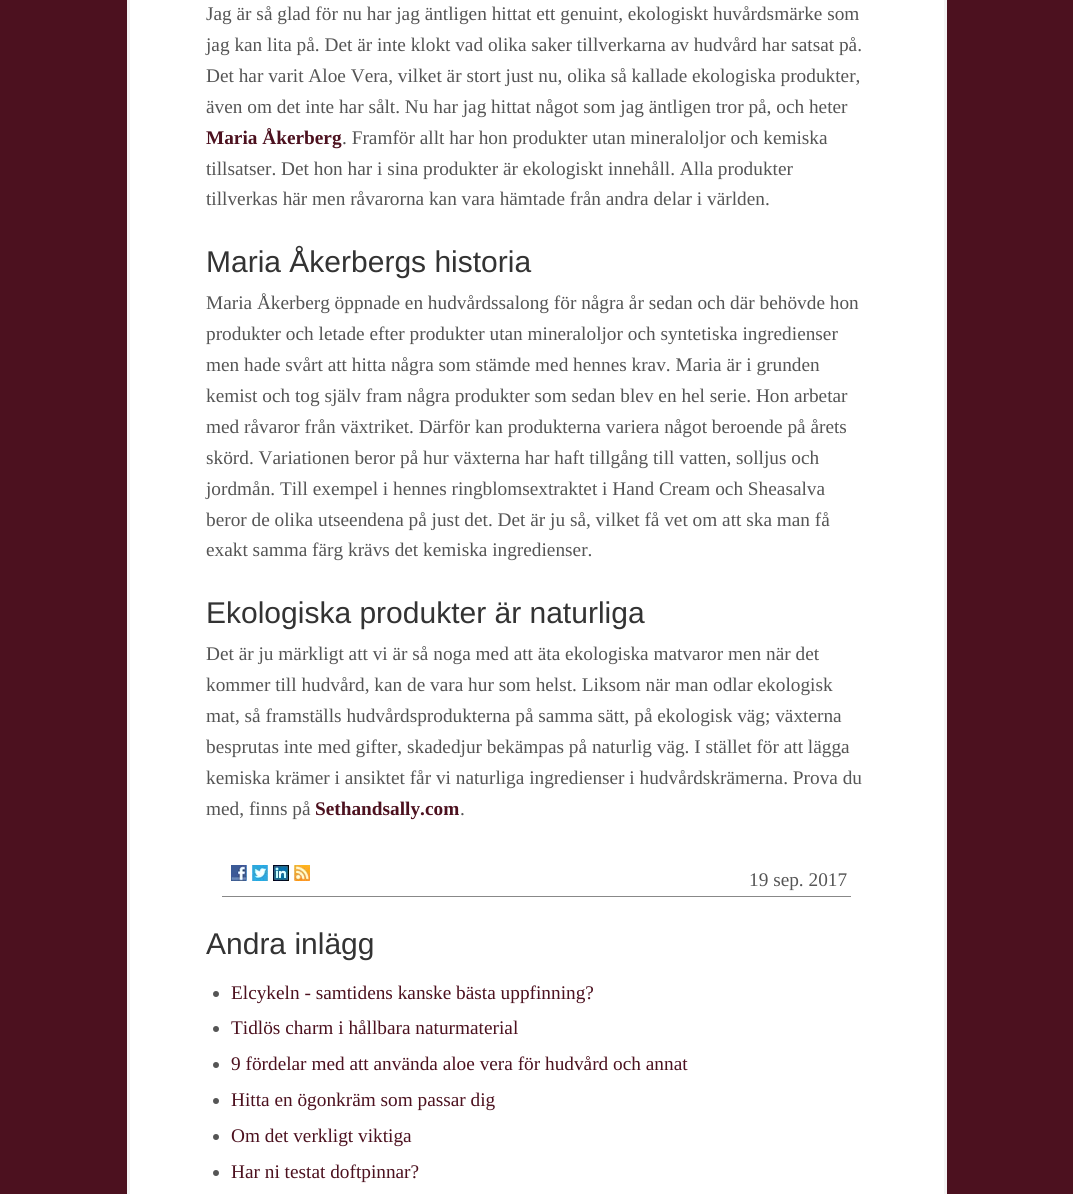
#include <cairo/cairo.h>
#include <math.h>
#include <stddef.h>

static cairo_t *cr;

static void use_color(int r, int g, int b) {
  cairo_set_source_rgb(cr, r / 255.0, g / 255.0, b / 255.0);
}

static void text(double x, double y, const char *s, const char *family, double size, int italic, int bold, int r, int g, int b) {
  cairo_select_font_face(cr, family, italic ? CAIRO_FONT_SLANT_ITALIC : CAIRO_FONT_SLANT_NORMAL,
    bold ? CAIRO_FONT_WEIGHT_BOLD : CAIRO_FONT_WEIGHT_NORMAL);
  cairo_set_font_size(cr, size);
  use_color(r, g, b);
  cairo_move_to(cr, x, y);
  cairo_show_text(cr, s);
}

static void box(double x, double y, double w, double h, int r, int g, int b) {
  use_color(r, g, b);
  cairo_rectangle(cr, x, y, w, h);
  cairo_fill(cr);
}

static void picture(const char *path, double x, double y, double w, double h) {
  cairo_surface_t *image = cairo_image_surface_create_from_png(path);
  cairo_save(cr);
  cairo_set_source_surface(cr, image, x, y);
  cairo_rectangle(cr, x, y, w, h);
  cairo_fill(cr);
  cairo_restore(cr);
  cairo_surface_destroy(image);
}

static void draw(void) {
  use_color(76, 17, 31);
  cairo_paint(cr);
  box(130, 0, 814, 1194, 255, 255, 255);
  box(944, 0, 3, 1194, 244, 244, 244);
  box(127, 0, 3, 1194, 244, 244, 244);
  picture("img_01.png", 231, 865, 16, 16);
  picture("img_02.png", 252, 865, 16, 16);
  picture("img_03.png", 273, 865, 16, 16);
  picture("img_04.png", 294, 865, 16, 16);
  box(222, 896, 629, 1, 136, 136, 136);
  use_color(85, 85, 85);
  cairo_arc(cr, 216, 994, 3, 0, 2 * M_PI);
  cairo_fill(cr);
  cairo_arc(cr, 216, 1029, 3, 0, 2 * M_PI);
  cairo_fill(cr);
  cairo_arc(cr, 216, 1065, 3, 0, 2 * M_PI);
  cairo_fill(cr);
  cairo_arc(cr, 216, 1101, 3, 0, 2 * M_PI);
  cairo_fill(cr);
  cairo_arc(cr, 216, 1137, 3, 0, 2 * M_PI);
  cairo_fill(cr);
  cairo_arc(cr, 216, 1173, 3, 0, 2 * M_PI);
  cairo_fill(cr);
  text(206, 20, "Jag är så glad för nu har jag äntligen hittat ett genuint, ekologiskt huvårdsmärke som", "Liberation Serif", 19.3, 0, 0, 85, 85, 85);
  text(206, 51, "jag kan lita på. Det är inte klokt vad olika saker tillverkarna av hudvård har satsat på.", "Liberation Serif", 19.3, 0, 0, 85, 85, 85);
  text(206, 82, "Det har varit Aloe Vera, vilket är stort just nu, olika så kallade ekologiska produkter,", "Liberation Serif", 19.3, 0, 0, 85, 85, 85);
  text(206, 113, "även om det inte har sålt. Nu har jag hittat något som jag äntligen tror på, och heter", "Liberation Serif", 19.3, 0, 0, 85, 85, 85);
  text(206, 144, "Maria Åkerberg", "Liberation Serif", 19.3, 0, 1, 76, 17, 31);
  text(342, 144, ". Framför allt har hon produkter utan mineraloljor och kemiska", "Liberation Serif", 19.3, 0, 0, 85, 85, 85);
  text(206, 175, "tillsatser. Det hon har i sina produkter är ekologiskt innehåll. Alla produkter", "Liberation Serif", 19.3, 0, 0, 85, 85, 85);
  text(206, 205, "tillverkas här men råvarorna kan vara hämtade från andra delar i världen.", "Liberation Serif", 19.3, 0, 0, 85, 85, 85);
  text(206, 272, "Maria Åkerbergs historia", "Liberation Sans", 30, 0, 0, 51, 51, 51);
  text(206, 309, "Maria Åkerberg öppnade en hudvårdssalong för några år sedan och där behövde hon", "Liberation Serif", 19.3, 0, 0, 85, 85, 85);
  text(206, 340, "produkter och letade efter produkter utan mineraloljor och syntetiska ingredienser", "Liberation Serif", 19.3, 0, 0, 85, 85, 85);
  text(206, 371, "men hade svårt att hitta några som stämde med hennes krav. Maria är i grunden", "Liberation Serif", 19.3, 0, 0, 85, 85, 85);
  text(206, 402, "kemist och tog själv fram några produkter som sedan blev en hel serie. Hon arbetar", "Liberation Serif", 19.3, 0, 0, 85, 85, 85);
  text(206, 433, "med råvaror från växtriket. Därför kan produkterna variera något beroende på årets", "Liberation Serif", 19.3, 0, 0, 85, 85, 85);
  text(206, 464, "skörd. Variationen beror på hur växterna har haft tillgång till vatten, solljus och", "Liberation Serif", 19.3, 0, 0, 85, 85, 85);
  text(206, 495, "jordmån. Till exempel i hennes ringblomsextraktet i Hand Cream och Sheasalva", "Liberation Serif", 19.3, 0, 0, 85, 85, 85);
  text(206, 526, "beror de olika utseendena på just det. Det är ju så, vilket få vet om att ska man få", "Liberation Serif", 19.3, 0, 0, 85, 85, 85);
  text(206, 556, "exakt samma färg krävs det kemiska ingredienser.", "Liberation Serif", 19.3, 0, 0, 85, 85, 85);
  text(206, 623, "Ekologiska produkter är naturliga", "Liberation Sans", 30, 0, 0, 51, 51, 51);
  text(206, 660, "Det är ju märkligt att vi är så noga med att äta ekologiska matvaror men när det", "Liberation Serif", 19.3, 0, 0, 85, 85, 85);
  text(206, 691, "kommer till hudvård, kan de vara hur som helst. Liksom när man odlar ekologisk", "Liberation Serif", 19.3, 0, 0, 85, 85, 85);
  text(206, 722, "mat, så framställs hudvårdsprodukterna på samma sätt, på ekologisk väg; växterna", "Liberation Serif", 19.3, 0, 0, 85, 85, 85);
  text(206, 753, "besprutas inte med gifter, skadedjur bekämpas på naturlig väg. I stället för att lägga", "Liberation Serif", 19.3, 0, 0, 85, 85, 85);
  text(206, 784, "kemiska krämer i ansiktet får vi naturliga ingredienser i hudvårdskrämerna. Prova du", "Liberation Serif", 19.3, 0, 0, 85, 85, 85);
  text(206, 815, "med, finns på", "Liberation Serif", 19.3, 0, 0, 85, 85, 85);
  text(315, 815, "Sethandsally.com", "Liberation Serif", 19.3, 0, 1, 76, 17, 31);
  text(460, 815, ".", "Liberation Serif", 19.3, 0, 0, 85, 85, 85);
  text(749, 886, "19 sep. 2017", "Liberation Serif", 19.3, 0, 0, 85, 85, 85);
  text(206, 954, "Andra inlägg", "Liberation Sans", 30, 0, 0, 51, 51, 51);
  text(231, 999, "Elcykeln - samtidens kanske bästa uppfinning?", "Liberation Serif", 19.3, 0, 0, 76, 17, 31);
  text(231, 1034, "Tidlös charm i hållbara naturmaterial", "Liberation Serif", 19.3, 0, 0, 76, 17, 31);
  text(231, 1070, "9 fördelar med att använda aloe vera för hudvård och annat", "Liberation Serif", 19.3, 0, 0, 76, 17, 31);
  text(231, 1106, "Hitta en ögonkräm som passar dig", "Liberation Serif", 19.3, 0, 0, 76, 17, 31);
  text(231, 1142, "Om det verkligt viktiga", "Liberation Serif", 19.3, 0, 0, 76, 17, 31);
  text(231, 1178, "Har ni testat doftpinnar?", "Liberation Serif", 19.3, 0, 0, 76, 17, 31);
}

int main(void) {
  cairo_surface_t *surface = cairo_image_surface_create(CAIRO_FORMAT_RGB24, 1073, 1194);
  cr = cairo_create(surface);
  cairo_font_options_t *options = cairo_font_options_create();
  cairo_font_options_set_hint_metrics(options, CAIRO_HINT_METRICS_OFF);
  cairo_font_options_set_hint_style(options, CAIRO_HINT_STYLE_NONE);
  cairo_set_font_options(cr, options);
  cairo_set_miter_limit(cr, 4);
  draw();
  cairo_surface_write_to_png(surface, "out.png");
  cairo_font_options_destroy(options);
  cairo_destroy(cr);
  cairo_surface_destroy(surface);
  return 0;
}
